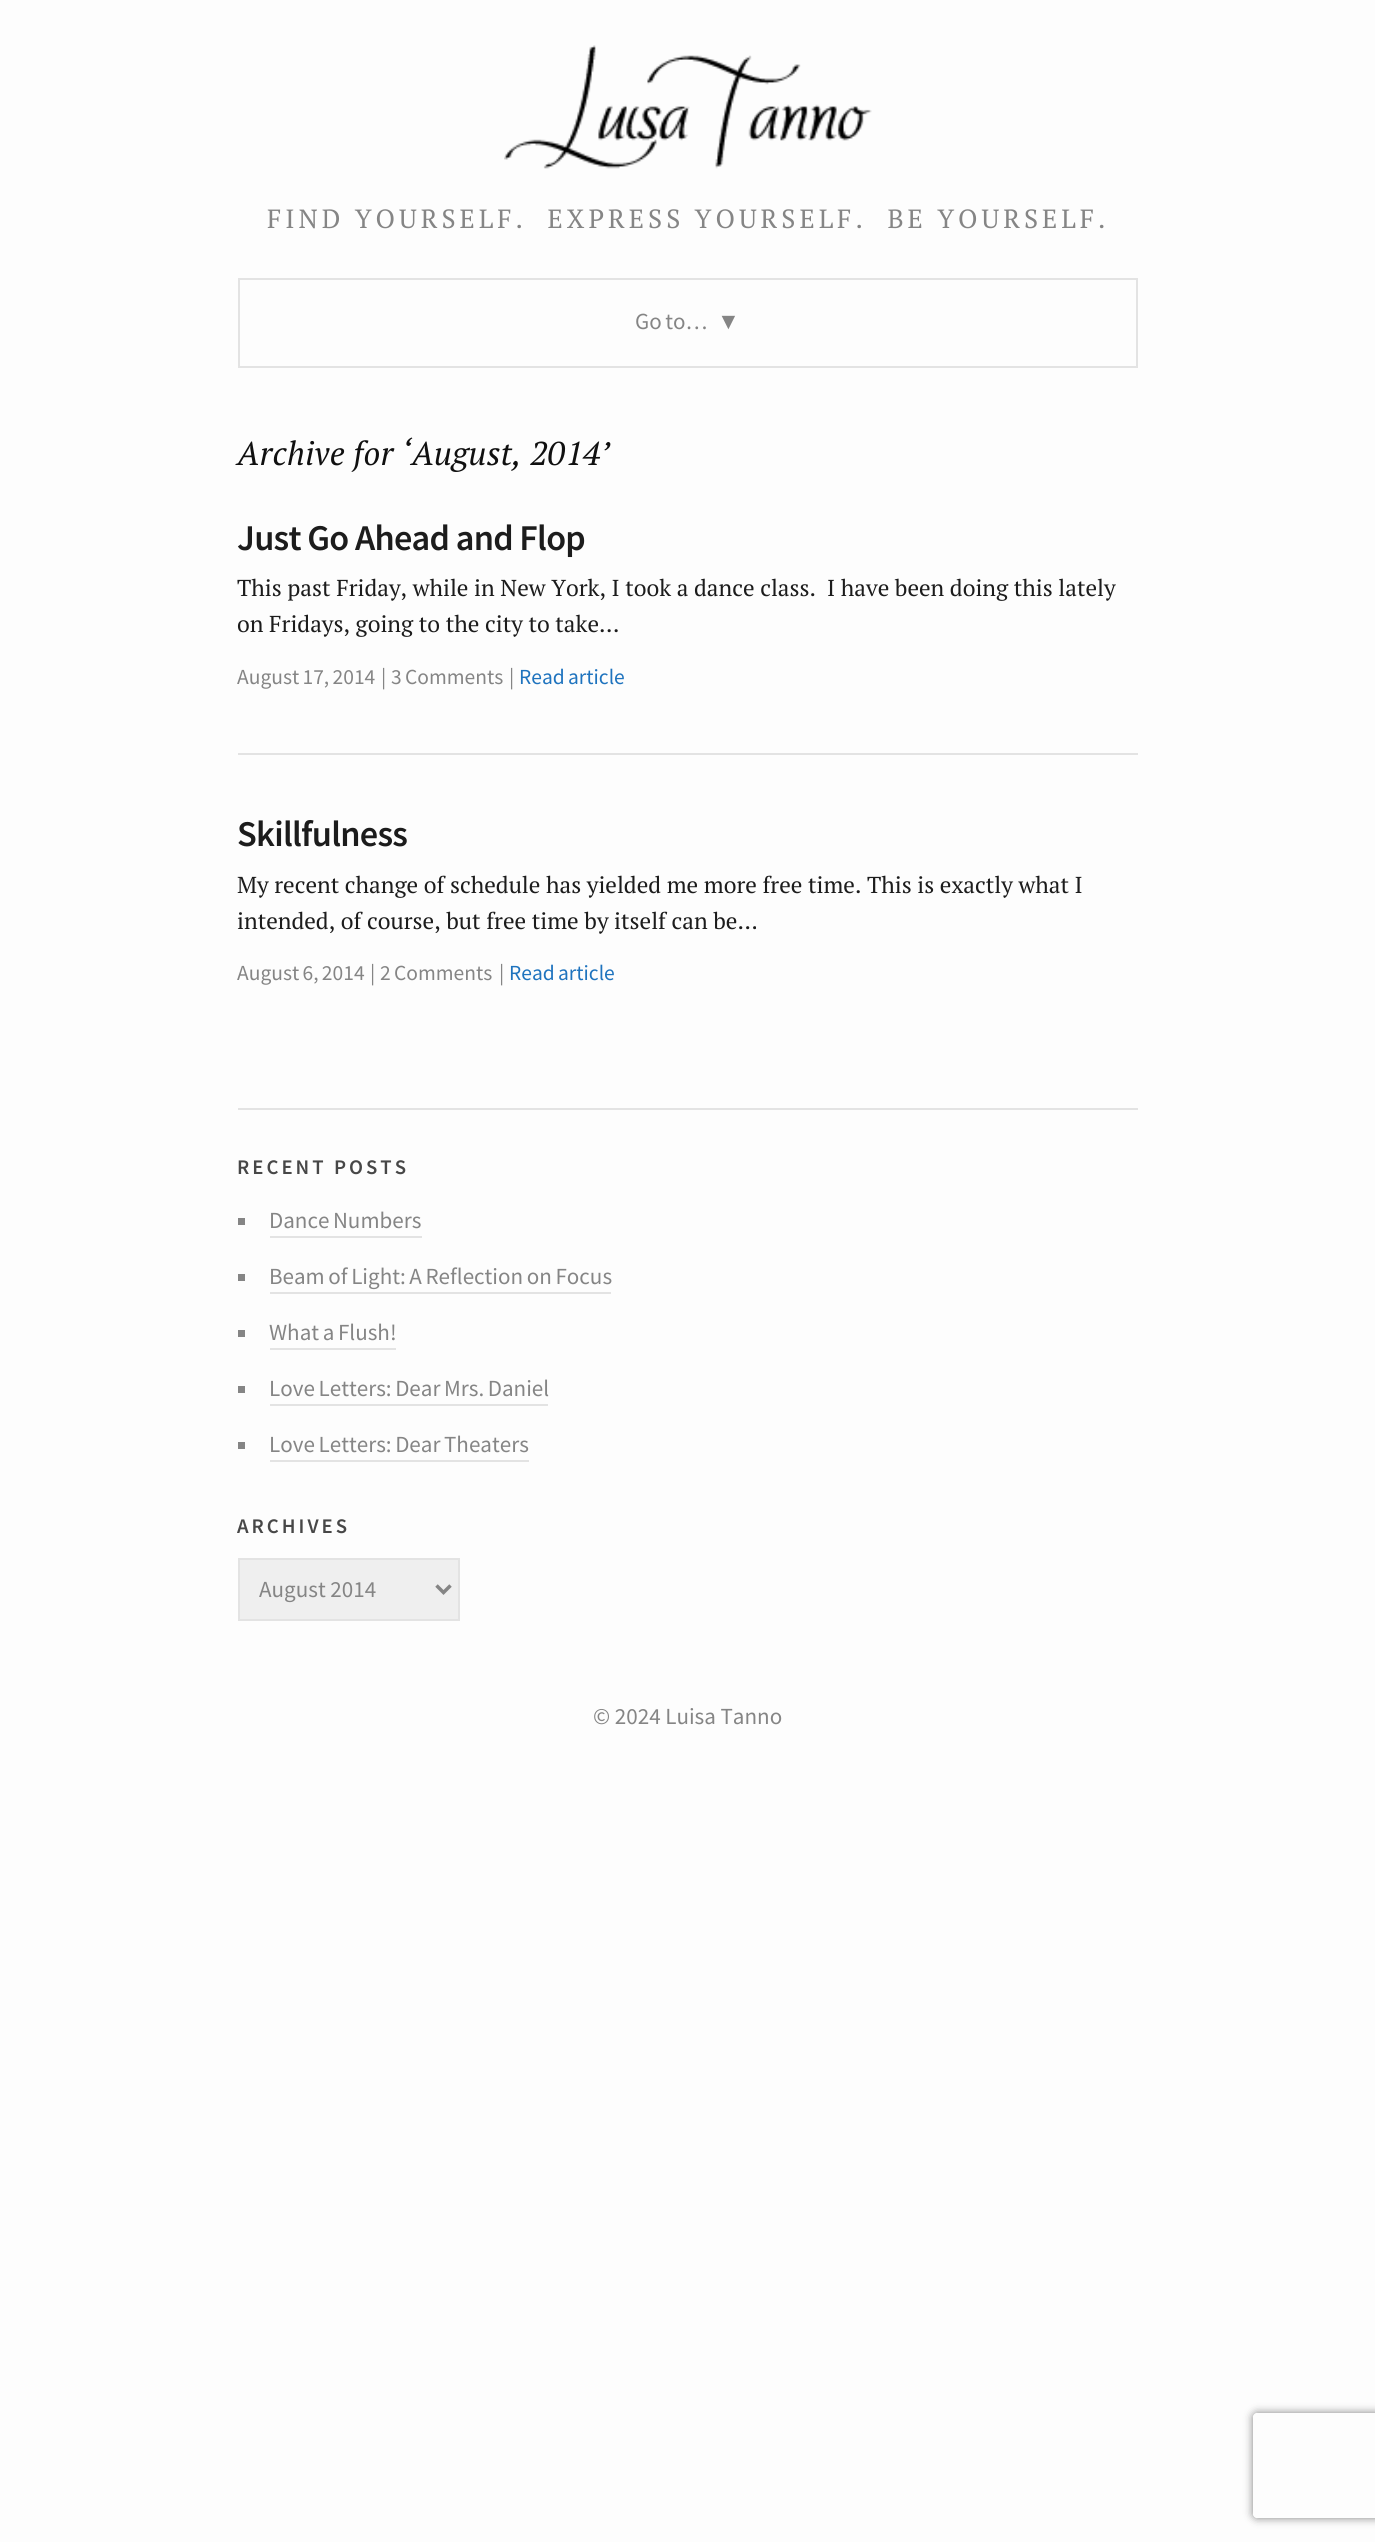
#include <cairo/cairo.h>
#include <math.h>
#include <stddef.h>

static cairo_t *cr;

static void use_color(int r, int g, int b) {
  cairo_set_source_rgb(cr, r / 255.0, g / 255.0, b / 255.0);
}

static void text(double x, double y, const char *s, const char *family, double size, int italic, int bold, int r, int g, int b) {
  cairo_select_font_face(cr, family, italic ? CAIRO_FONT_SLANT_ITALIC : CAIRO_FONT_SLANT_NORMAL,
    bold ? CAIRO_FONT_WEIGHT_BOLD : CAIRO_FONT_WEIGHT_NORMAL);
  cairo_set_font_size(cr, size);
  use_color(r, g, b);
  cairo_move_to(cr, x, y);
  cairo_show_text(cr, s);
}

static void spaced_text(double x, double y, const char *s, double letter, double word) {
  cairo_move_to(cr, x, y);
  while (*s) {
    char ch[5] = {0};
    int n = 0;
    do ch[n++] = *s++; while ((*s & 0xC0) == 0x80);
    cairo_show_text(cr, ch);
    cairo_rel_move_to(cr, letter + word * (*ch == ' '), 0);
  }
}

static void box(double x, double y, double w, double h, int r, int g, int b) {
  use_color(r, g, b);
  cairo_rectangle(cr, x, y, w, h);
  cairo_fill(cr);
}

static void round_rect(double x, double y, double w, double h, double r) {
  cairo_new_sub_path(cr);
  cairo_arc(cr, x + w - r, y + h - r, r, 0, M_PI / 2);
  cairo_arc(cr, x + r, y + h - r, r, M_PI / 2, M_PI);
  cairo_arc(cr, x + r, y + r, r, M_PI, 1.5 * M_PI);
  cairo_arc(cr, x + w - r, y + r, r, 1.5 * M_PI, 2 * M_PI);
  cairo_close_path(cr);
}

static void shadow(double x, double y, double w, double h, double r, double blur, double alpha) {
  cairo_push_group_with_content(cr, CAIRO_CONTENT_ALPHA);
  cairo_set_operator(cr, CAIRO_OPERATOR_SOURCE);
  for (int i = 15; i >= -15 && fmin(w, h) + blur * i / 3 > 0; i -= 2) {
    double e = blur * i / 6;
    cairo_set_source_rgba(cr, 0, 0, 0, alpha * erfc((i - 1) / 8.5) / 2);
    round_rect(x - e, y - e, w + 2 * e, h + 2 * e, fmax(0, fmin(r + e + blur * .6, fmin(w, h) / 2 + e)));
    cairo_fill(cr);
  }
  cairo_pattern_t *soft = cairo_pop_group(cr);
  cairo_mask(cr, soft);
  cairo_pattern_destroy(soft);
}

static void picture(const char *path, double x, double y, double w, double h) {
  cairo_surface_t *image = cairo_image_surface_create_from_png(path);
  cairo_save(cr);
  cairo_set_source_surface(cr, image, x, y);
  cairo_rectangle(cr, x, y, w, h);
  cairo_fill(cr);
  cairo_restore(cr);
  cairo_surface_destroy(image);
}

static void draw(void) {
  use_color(253, 253, 253);
  cairo_paint(cr);
  picture("img_01.png", 504, 45, 368, 124);
  cairo_rectangle(cr, 239, 279, 898, 88);
  use_color(227, 227, 227);
  cairo_stroke(cr);
  box(238, 753, 900, 2, 227, 227, 227);
  box(238, 1108, 900, 2, 227, 227, 227);
  box(238, 1218, 7, 7, 133, 133, 133);
  box(270, 1236, 152, 2, 227, 227, 227);
  box(238, 1274, 7, 7, 133, 133, 133);
  box(270, 1292, 341, 2, 227, 227, 227);
  box(238, 1330, 7, 7, 133, 133, 133);
  box(270, 1348, 126, 2, 227, 227, 227);
  box(238, 1386, 7, 7, 133, 133, 133);
  box(270, 1404, 278, 2, 227, 227, 227);
  box(238, 1442, 7, 7, 133, 133, 133);
  box(270, 1460, 259, 2, 227, 227, 227);
  use_color(239, 239, 239);
  cairo_rectangle(cr, 239, 1559, 220, 61);
  cairo_fill_preserve(cr);
  use_color(227, 227, 227);
  cairo_stroke(cr);
  cairo_new_path(cr);
  cairo_move_to(cr, 436.5, 1585.5);
  cairo_line_to(cr, 443.5, 1592.5);
  cairo_line_to(cr, 450.5, 1585.5);
  use_color(133, 133, 133);
  cairo_set_line_width(cr, 3.5);
  cairo_stroke(cr);
  cairo_save(cr);
  cairo_set_fill_rule(cr, CAIRO_FILL_RULE_EVEN_ODD);
  cairo_new_path(cr);
  cairo_move_to(cr, 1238, 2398);
  cairo_line_to(cr, 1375, 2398);
  cairo_line_to(cr, 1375, 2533);
  cairo_line_to(cr, 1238, 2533);
  cairo_close_path(cr);
  cairo_move_to(cr, 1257, 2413);
  cairo_line_to(cr, 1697, 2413);
  cairo_curve_to(cr, 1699, 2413, 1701, 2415, 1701, 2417);
  cairo_line_to(cr, 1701, 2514);
  cairo_curve_to(cr, 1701, 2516, 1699, 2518, 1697, 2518);
  cairo_line_to(cr, 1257, 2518);
  cairo_curve_to(cr, 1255, 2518, 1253, 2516, 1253, 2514);
  cairo_line_to(cr, 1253, 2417);
  cairo_curve_to(cr, 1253, 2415, 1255, 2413, 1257, 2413);
  cairo_close_path(cr);
  cairo_clip(cr);
  use_color(128, 128, 128);
  shadow(1253, 2413, 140, 105, 4, 4.5, 1);
  cairo_restore(cr);
  cairo_select_font_face(cr, "PT Serif", CAIRO_FONT_SLANT_NORMAL, CAIRO_FONT_WEIGHT_NORMAL);
  cairo_set_font_size(cr, 26.35);
  spaced_text(267, 228, "FIND YOURSELF.  EXPRESS YOURSELF.  BE YOURSELF.", 3.95, 0);
  cairo_select_font_face(cr, "Source Sans Pro", CAIRO_FONT_SLANT_NORMAL, CAIRO_FONT_WEIGHT_NORMAL);
  cairo_set_font_size(cr, 23.05);
  spaced_text(635, 329, "Go to…", 0, -1);
  text(717, 329, "▼", "Liberation Sans", 23.05, 0, 0, 133, 133, 133);
  cairo_select_font_face(cr, "PT Serif", CAIRO_FONT_SLANT_ITALIC, CAIRO_FONT_WEIGHT_NORMAL);
  cairo_set_font_size(cr, 33);
  use_color(16, 16, 16);
  spaced_text(237, 465, "Archive for ‘August, 2014’", 0.3, 0);
  cairo_select_font_face(cr, "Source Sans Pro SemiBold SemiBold", CAIRO_FONT_SLANT_NORMAL, CAIRO_FONT_WEIGHT_NORMAL);
  cairo_set_font_size(cr, 36.25);
  use_color(28, 28, 28);
  spaced_text(237, 550, "Just Go Ahead and Flop", -0.75, 0);
  text(237, 596, "This past Friday, while in New York, I took a dance class.  I have been doing this lately", "PT Serif", 23.05, 0, 0, 28, 28, 28);
  text(237, 632, "on Fridays, going to the city to take…", "PT Serif", 23.05, 0, 0, 28, 28, 28);
  cairo_select_font_face(cr, "Source Sans Pro", CAIRO_FONT_SLANT_NORMAL, CAIRO_FONT_WEIGHT_NORMAL);
  cairo_set_font_size(cr, 21.5);
  use_color(133, 133, 133);
  spaced_text(237, 684, "August 17, 2014", 0, -1);
  text(381, 684, "|", "Source Sans Pro", 21.5, 0, 0, 133, 133, 133);
  spaced_text(391, 684, "3 Comments", 0, -1);
  text(509, 684, "|", "Source Sans Pro", 21.5, 0, 0, 133, 133, 133);
  use_color(30, 115, 190);
  spaced_text(519, 684, "Read article", 0, -1);
  cairo_select_font_face(cr, "Source Sans Pro SemiBold SemiBold", CAIRO_FONT_SLANT_NORMAL, CAIRO_FONT_WEIGHT_NORMAL);
  cairo_set_font_size(cr, 36.25);
  use_color(28, 28, 28);
  spaced_text(237, 846, "Skillfulness", -0.75, 0);
  text(237, 893, "My recent change of schedule has yielded me more free time. This is exactly what I", "PT Serif", 23.05, 0, 0, 28, 28, 28);
  text(237, 929, "intended, of course, but free time by itself can be…", "PT Serif", 23.05, 0, 0, 28, 28, 28);
  cairo_select_font_face(cr, "Source Sans Pro", CAIRO_FONT_SLANT_NORMAL, CAIRO_FONT_WEIGHT_NORMAL);
  cairo_set_font_size(cr, 21.5);
  use_color(133, 133, 133);
  spaced_text(237, 980, "August 6, 2014", 0, -1);
  text(370, 980, "|", "Source Sans Pro", 21.5, 0, 0, 133, 133, 133);
  spaced_text(380, 980, "2 Comments", 0, -1);
  text(499, 980, "|", "Source Sans Pro", 21.5, 0, 0, 133, 133, 133);
  use_color(30, 115, 190);
  spaced_text(509, 980, "Read article", 0, -1);
  cairo_select_font_face(cr, "Source Sans Pro SemiBold SemiBold", CAIRO_FONT_SLANT_NORMAL, CAIRO_FONT_WEIGHT_NORMAL);
  cairo_set_font_size(cr, 20.75);
  use_color(71, 71, 71);
  spaced_text(237, 1174, "RECENT", 3, 0);
  spaced_text(334, 1174, "POSTS", 3, 0);
  cairo_select_font_face(cr, "Source Sans Pro", CAIRO_FONT_SLANT_NORMAL, CAIRO_FONT_WEIGHT_NORMAL);
  cairo_set_font_size(cr, 23.05);
  use_color(133, 133, 133);
  spaced_text(269, 1228, "Dance Numbers", 0, -1);
  spaced_text(269, 1284, "Beam of Light: A Reflection on Focus", 0, -1);
  spaced_text(269, 1340, "What a Flush!", 0, -1);
  spaced_text(269, 1396, "Love Letters: Dear Mrs. Daniel", 0, -1);
  spaced_text(269, 1452, "Love Letters: Dear Theaters", 0, -1);
  cairo_select_font_face(cr, "Source Sans Pro SemiBold SemiBold", CAIRO_FONT_SLANT_NORMAL, CAIRO_FONT_WEIGHT_NORMAL);
  cairo_set_font_size(cr, 20.75);
  use_color(71, 71, 71);
  spaced_text(237, 1533, "ARCHIVES", 3, 0);
  text(259, 1597, "August 2014", "Source Sans Pro", 23.05, 0, 0, 133, 133, 133);
  text(593, 1724, "© 2024 Luisa Tanno", "Source Sans Pro", 23.05, 0, 0, 133, 133, 133);
}

int main(void) {
  cairo_surface_t *surface = cairo_image_surface_create(CAIRO_FORMAT_RGB24, 1375, 2542);
  cr = cairo_create(surface);
  cairo_font_options_t *options = cairo_font_options_create();
  cairo_font_options_set_hint_metrics(options, CAIRO_HINT_METRICS_OFF);
  cairo_font_options_set_hint_style(options, CAIRO_HINT_STYLE_NONE);
  cairo_set_font_options(cr, options);
  cairo_set_miter_limit(cr, 4);
  draw();
  cairo_surface_write_to_png(surface, "out.png");
  cairo_font_options_destroy(options);
  cairo_destroy(cr);
  cairo_surface_destroy(surface);
  return 0;
}
